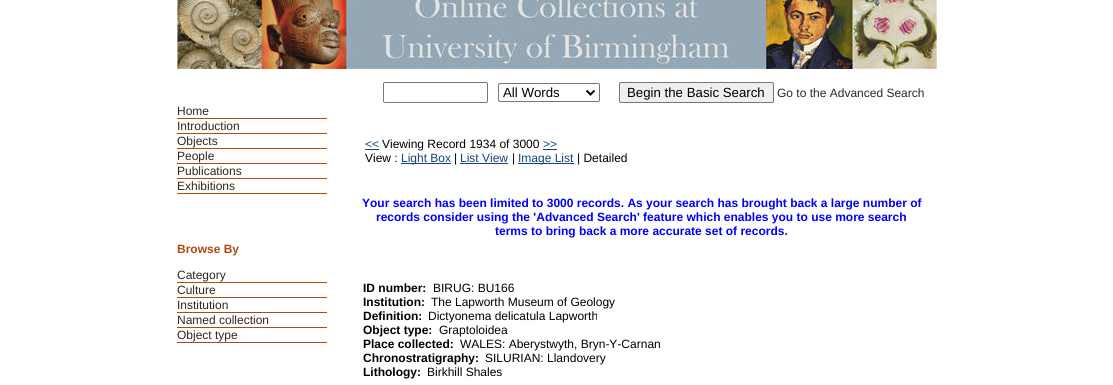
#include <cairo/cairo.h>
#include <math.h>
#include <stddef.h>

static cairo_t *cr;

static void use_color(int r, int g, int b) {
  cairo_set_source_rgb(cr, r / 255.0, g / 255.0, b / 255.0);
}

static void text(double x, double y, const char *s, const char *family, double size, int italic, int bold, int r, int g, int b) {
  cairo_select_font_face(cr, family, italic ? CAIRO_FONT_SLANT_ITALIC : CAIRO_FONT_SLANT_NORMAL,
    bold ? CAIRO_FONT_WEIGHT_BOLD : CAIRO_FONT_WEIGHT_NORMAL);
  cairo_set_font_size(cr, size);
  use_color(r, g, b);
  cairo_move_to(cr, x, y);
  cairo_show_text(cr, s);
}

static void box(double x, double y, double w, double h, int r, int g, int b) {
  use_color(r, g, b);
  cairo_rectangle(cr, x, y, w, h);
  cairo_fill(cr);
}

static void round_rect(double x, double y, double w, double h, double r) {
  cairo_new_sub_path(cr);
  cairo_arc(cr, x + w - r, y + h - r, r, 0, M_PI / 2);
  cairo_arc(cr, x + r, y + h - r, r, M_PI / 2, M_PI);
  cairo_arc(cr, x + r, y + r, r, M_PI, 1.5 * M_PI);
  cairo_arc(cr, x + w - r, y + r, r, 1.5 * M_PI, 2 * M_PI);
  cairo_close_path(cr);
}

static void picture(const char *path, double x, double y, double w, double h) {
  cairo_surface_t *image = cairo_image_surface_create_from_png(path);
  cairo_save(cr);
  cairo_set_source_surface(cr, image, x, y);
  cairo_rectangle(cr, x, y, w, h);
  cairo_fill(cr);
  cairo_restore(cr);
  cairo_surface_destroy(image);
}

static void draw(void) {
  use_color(255, 255, 255);
  cairo_paint(cr);
  picture("img_01.png", 177, 0, 760, 69);
  round_rect(383.5, 82.5, 104, 20, 1.5);
  use_color(118, 118, 118);
  cairo_set_line_width(cr, 1);
  cairo_stroke(cr);
  round_rect(498.5, 83.5, 101, 18, 1.5);
  cairo_stroke(cr);
  cairo_new_path(cr);
  cairo_move_to(cr, 586.5, 90.5);
  cairo_line_to(cr, 590.5, 94.5);
  cairo_line_to(cr, 594.5, 90.5);
  use_color(0, 0, 0);
  cairo_set_line_width(cr, 2);
  cairo_stroke(cr);
  use_color(239, 239, 239);
  round_rect(619.5, 82.5, 154, 20, 1.5);
  cairo_fill_preserve(cr);
  use_color(118, 118, 118);
  cairo_set_line_width(cr, 1);
  cairo_stroke(cr);
  box(177, 118, 150, 1, 178, 73, 14);
  box(177, 133, 150, 1, 178, 73, 14);
  box(177, 148, 150, 1, 178, 73, 14);
  box(177, 163, 150, 1, 178, 73, 14);
  box(177, 178, 150, 1, 178, 73, 14);
  box(177, 193, 150, 1, 178, 73, 14);
  box(365, 149, 14, 1, 21, 68, 124);
  box(543, 149, 14, 1, 21, 68, 124);
  box(401, 163, 50, 1, 21, 68, 124);
  box(460, 163, 48, 1, 21, 68, 124);
  box(518, 163, 56, 1, 21, 68, 124);
  box(177, 282, 150, 1, 178, 73, 14);
  box(177, 297, 150, 1, 178, 73, 14);
  box(177, 312, 150, 1, 178, 73, 14);
  box(177, 327, 150, 1, 178, 73, 14);
  box(177, 342, 150, 1, 178, 73, 14);
  text(503, 97, "All Words", "Liberation Sans", 13.25, 0, 0, 0, 0, 0);
  text(627, 97, "Begin the Basic Search", "Liberation Sans", 13.25, 0, 0, 0, 0, 0);
  text(777, 97, "Go to the Advanced Search", "Liberation Sans", 12, 0, 0, 46, 38, 32);
  text(177, 115, "Home", "Liberation Sans", 12, 0, 0, 46, 38, 32);
  text(177, 130, "Introduction", "Liberation Sans", 12, 0, 0, 46, 38, 32);
  text(177, 145, "Objects", "Liberation Sans", 12, 0, 0, 46, 38, 32);
  text(177, 160, "People", "Liberation Sans", 12, 0, 0, 46, 38, 32);
  text(177, 175, "Publications", "Liberation Sans", 12, 0, 0, 46, 38, 32);
  text(177, 190, "Exhibitions", "Liberation Sans", 12, 0, 0, 46, 38, 32);
  text(365, 148, "<<", "Liberation Sans", 12, 0, 0, 21, 68, 124);
  text(382, 148, "Viewing Record 1934 of 3000", "Liberation Sans", 12, 0, 0, 0, 0, 0);
  text(543, 148, ">>", "Liberation Sans", 12, 0, 0, 21, 68, 124);
  text(365, 162, "View :", "Liberation Sans", 12, 0, 0, 0, 0, 0);
  text(401, 162, "Light Box", "Liberation Sans", 12, 0, 0, 21, 68, 124);
  text(454, 162, "|", "Liberation Sans", 12, 0, 0, 0, 0, 0);
  text(460, 162, "List View", "Liberation Sans", 12, 0, 0, 21, 68, 124);
  text(512, 162, "|", "Liberation Sans", 12, 0, 0, 0, 0, 0);
  text(518, 162, "Image List", "Liberation Sans", 12, 0, 0, 21, 68, 124);
  text(577, 162, "| Detailed", "Liberation Sans", 12, 0, 0, 0, 0, 0);
  text(362, 207, "Your search has been limited to 3000 records. As your search has brought back a large number of", "Liberation Sans", 12, 0, 1, 0, 0, 255);
  text(376, 221, "records consider using the 'Advanced Search' feature which enables you to use more search", "Liberation Sans", 12, 0, 1, 0, 0, 255);
  text(495, 235, "terms to bring back a more accurate set of records.", "Liberation Sans", 12, 0, 1, 0, 0, 255);
  text(363, 292, "ID number:", "Liberation Sans", 12, 0, 1, 0, 0, 0);
  text(433, 292, "BIRUG: BU166", "Liberation Sans", 12, 0, 0, 0, 0, 0);
  text(363, 306, "Institution:", "Liberation Sans", 12, 0, 1, 0, 0, 0);
  text(431, 306, "The Lapworth Museum of Geology", "Liberation Sans", 12, 0, 0, 0, 0, 0);
  text(363, 320, "Definition:", "Liberation Sans", 12, 0, 1, 0, 0, 0);
  text(428, 320, "Dictyonema delicatula Lapworth", "Liberation Sans", 12, 0, 0, 0, 0, 0);
  text(363, 334, "Object type:", "Liberation Sans", 12, 0, 1, 0, 0, 0);
  text(439, 334, "Graptoloidea", "Liberation Sans", 12, 0, 0, 0, 0, 0);
  text(363, 348, "Place collected:", "Liberation Sans", 12, 0, 1, 0, 0, 0);
  text(460, 348, "WALES: Aberystwyth, Bryn-Y-Carnan", "Liberation Sans", 12, 0, 0, 0, 0, 0);
  text(363, 362, "Chronostratigraphy:", "Liberation Sans", 12, 0, 1, 0, 0, 0);
  text(485, 362, "SILURIAN: Llandovery", "Liberation Sans", 12, 0, 0, 0, 0, 0);
  text(363, 376, "Lithology:", "Liberation Sans", 12, 0, 1, 0, 0, 0);
  text(427, 376, "Birkhill Shales", "Liberation Sans", 12, 0, 0, 0, 0, 0);
  text(177, 253, "Browse By", "Liberation Sans", 12, 0, 1, 178, 73, 14);
  text(177, 279, "Category", "Liberation Sans", 12, 0, 0, 46, 38, 32);
  text(177, 294, "Culture", "Liberation Sans", 12, 0, 0, 46, 38, 32);
  text(177, 309, "Institution", "Liberation Sans", 12, 0, 0, 46, 38, 32);
  text(177, 324, "Named collection", "Liberation Sans", 12, 0, 0, 46, 38, 32);
  text(177, 339, "Object type", "Liberation Sans", 12, 0, 0, 46, 38, 32);
}

int main(void) {
  cairo_surface_t *surface = cairo_image_surface_create(CAIRO_FORMAT_RGB24, 1113, 385);
  cr = cairo_create(surface);
  cairo_font_options_t *options = cairo_font_options_create();
  cairo_font_options_set_hint_metrics(options, CAIRO_HINT_METRICS_OFF);
  cairo_font_options_set_hint_style(options, CAIRO_HINT_STYLE_NONE);
  cairo_set_font_options(cr, options);
  cairo_set_miter_limit(cr, 4);
  draw();
  cairo_surface_write_to_png(surface, "out.png");
  cairo_font_options_destroy(options);
  cairo_destroy(cr);
  cairo_surface_destroy(surface);
  return 0;
}
